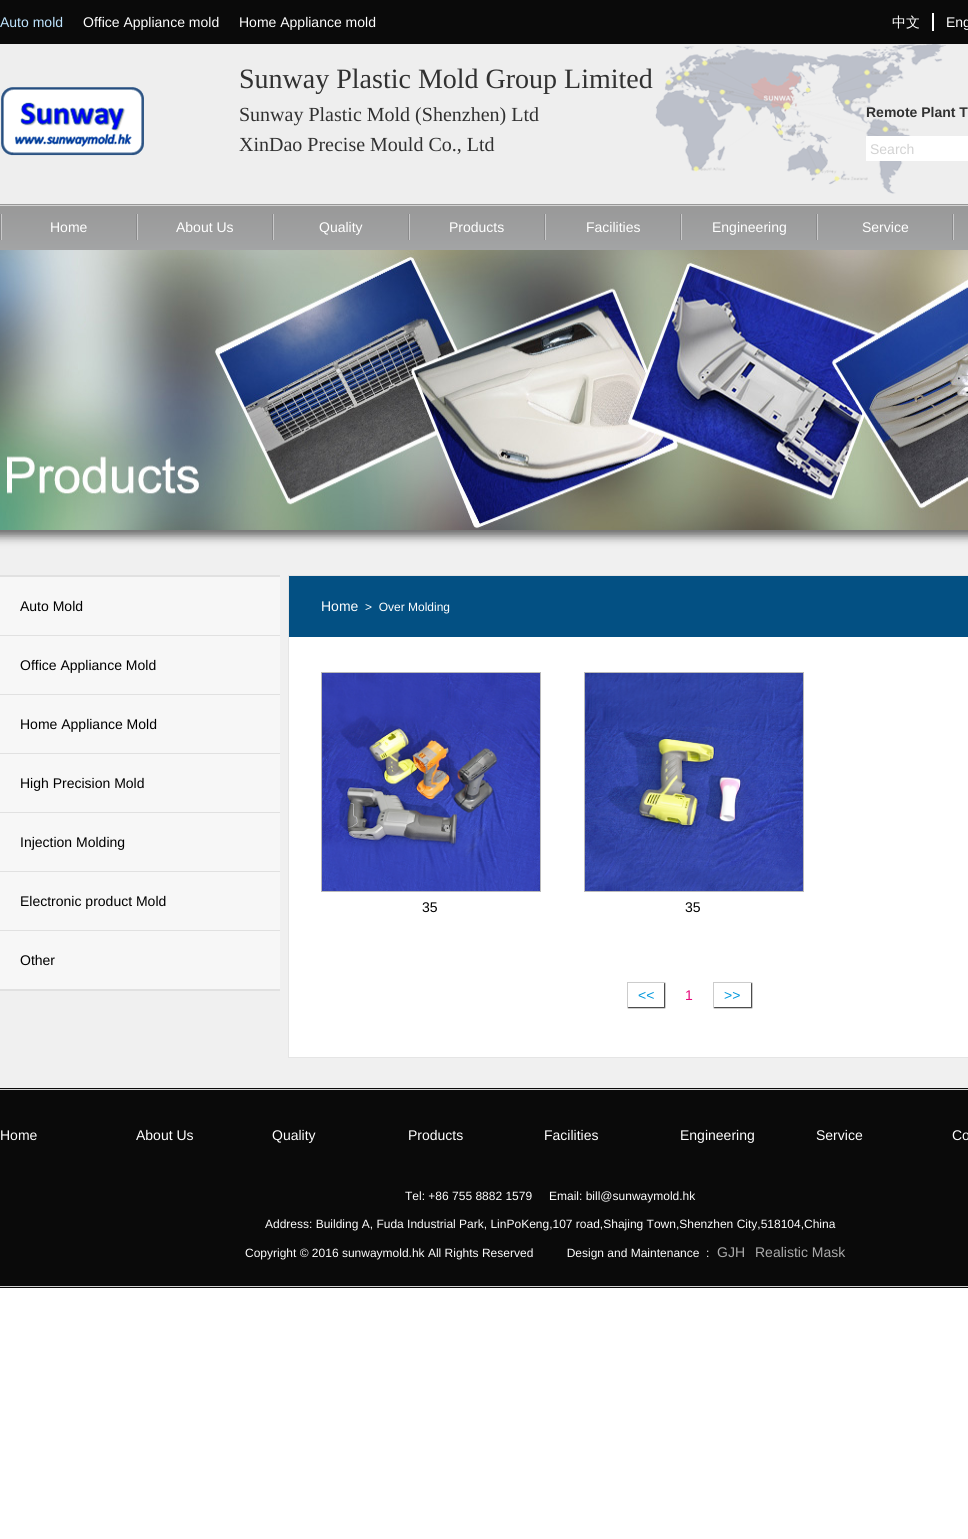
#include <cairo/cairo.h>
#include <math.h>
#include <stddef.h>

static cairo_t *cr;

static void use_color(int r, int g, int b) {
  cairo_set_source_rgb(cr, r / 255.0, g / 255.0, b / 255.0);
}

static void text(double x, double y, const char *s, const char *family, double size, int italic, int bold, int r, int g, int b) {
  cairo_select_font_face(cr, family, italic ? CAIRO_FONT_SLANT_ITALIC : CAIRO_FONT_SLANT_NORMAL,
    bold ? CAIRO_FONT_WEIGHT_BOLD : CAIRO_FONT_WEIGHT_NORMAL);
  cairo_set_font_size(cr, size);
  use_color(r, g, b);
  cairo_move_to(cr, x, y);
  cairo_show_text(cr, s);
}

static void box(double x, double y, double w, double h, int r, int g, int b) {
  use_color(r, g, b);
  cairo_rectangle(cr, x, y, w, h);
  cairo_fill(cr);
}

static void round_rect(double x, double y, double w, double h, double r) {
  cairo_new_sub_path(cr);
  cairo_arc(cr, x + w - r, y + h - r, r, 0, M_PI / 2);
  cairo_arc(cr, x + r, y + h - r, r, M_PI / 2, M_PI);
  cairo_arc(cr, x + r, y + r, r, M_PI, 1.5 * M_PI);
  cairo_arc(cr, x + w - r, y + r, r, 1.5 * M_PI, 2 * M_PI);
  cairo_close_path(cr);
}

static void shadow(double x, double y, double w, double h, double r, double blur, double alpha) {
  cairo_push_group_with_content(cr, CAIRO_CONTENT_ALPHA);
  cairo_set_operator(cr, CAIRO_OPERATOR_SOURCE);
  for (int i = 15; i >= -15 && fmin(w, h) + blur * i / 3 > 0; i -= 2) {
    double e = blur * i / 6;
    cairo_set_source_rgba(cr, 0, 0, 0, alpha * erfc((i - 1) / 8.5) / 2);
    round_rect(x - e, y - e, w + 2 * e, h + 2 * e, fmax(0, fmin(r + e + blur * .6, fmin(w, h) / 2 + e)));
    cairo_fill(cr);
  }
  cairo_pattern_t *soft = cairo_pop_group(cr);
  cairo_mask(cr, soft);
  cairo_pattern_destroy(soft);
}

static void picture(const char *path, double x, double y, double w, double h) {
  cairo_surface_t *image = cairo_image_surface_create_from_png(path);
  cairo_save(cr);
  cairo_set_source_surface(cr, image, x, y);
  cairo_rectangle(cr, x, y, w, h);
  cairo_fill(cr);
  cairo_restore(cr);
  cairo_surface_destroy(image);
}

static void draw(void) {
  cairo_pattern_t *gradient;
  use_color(255, 255, 255);
  cairo_paint(cr);
  box(0, 0, 968, 44, 10, 10, 10);
  box(932, 13, 2, 18, 255, 255, 255);
  box(0, 44, 968, 160, 238, 238, 238);
  picture("img_01.png", 655, 44, 291, 150);
  picture("img_02.png", 0, 87, 144, 69);
  box(866, 136, 102, 25, 255, 255, 255);
  box(0, 530, 968, 558, 240, 240, 240);
  use_color(102, 102, 102);
  shadow(-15, 256, 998, 280, 0, 5, 1);
  gradient = cairo_pattern_create_linear(484, 204, 484, 250);
  cairo_pattern_add_color_stop_rgba(gradient, 0, 0.596, 0.596, 0.596, 1);
  cairo_pattern_add_color_stop_rgba(gradient, 1, 0.639, 0.643, 0.647, 1);
  cairo_set_source(cr, gradient);
  cairo_pattern_destroy(gradient);
  cairo_rectangle(cr, 0, 204, 968, 46);
  cairo_fill(cr);
  box(0, 205, 968, 1, 210, 210, 210);
  box(0, 214, 1, 26, 138, 138, 139);
  box(136, 214, 1, 26, 138, 138, 139);
  box(1, 214, 1, 26, 200, 200, 201);
  box(272, 214, 1, 26, 138, 138, 139);
  box(137, 214, 1, 26, 200, 200, 201);
  box(408, 214, 1, 26, 138, 138, 139);
  box(273, 214, 1, 26, 200, 200, 201);
  box(544, 214, 1, 26, 138, 138, 139);
  box(409, 214, 1, 26, 200, 200, 201);
  box(680, 214, 1, 26, 138, 138, 139);
  box(545, 214, 1, 26, 200, 200, 201);
  box(816, 214, 1, 26, 138, 138, 139);
  box(681, 214, 1, 26, 200, 200, 201);
  box(952, 214, 1, 26, 138, 138, 139);
  box(817, 214, 1, 26, 200, 200, 201);
  box(953, 214, 1, 26, 200, 200, 201);
  picture("img_03.png", 0, 250, 968, 280);
  box(0, 575, 280, 2, 225, 225, 225);
  box(0, 989, 280, 2, 225, 225, 225);
  box(0, 577, 280, 58, 247, 247, 247);
  box(0, 636, 280, 58, 247, 247, 247);
  box(0, 635, 280, 1, 225, 225, 225);
  box(0, 695, 280, 58, 247, 247, 247);
  box(0, 694, 280, 1, 225, 225, 225);
  box(0, 754, 280, 58, 247, 247, 247);
  box(0, 753, 280, 1, 225, 225, 225);
  box(0, 813, 280, 58, 247, 247, 247);
  box(0, 812, 280, 1, 225, 225, 225);
  box(0, 872, 280, 58, 247, 247, 247);
  box(0, 871, 280, 1, 225, 225, 225);
  box(0, 931, 280, 58, 247, 247, 247);
  box(0, 930, 280, 1, 225, 225, 225);
  box(289, 637, 679, 420, 255, 255, 255);
  cairo_rectangle(cr, 288.5, 575.5, 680, 482);
  use_color(229, 229, 229);
  cairo_set_line_width(cr, 1);
  cairo_stroke(cr);
  box(289, 576, 679, 61, 3, 80, 131);
  cairo_rectangle(cr, 321.5, 672.5, 219, 219);
  use_color(186, 186, 186);
  cairo_stroke(cr);
  picture("img_04.png", 322, 673, 218, 218);
  cairo_rectangle(cr, 584.5, 672.5, 219, 219);
  cairo_stroke(cr);
  picture("img_05.png", 585, 673, 218, 218);
  cairo_save(cr);
  cairo_set_fill_rule(cr, CAIRO_FILL_RULE_EVEN_ODD);
  cairo_new_path(cr);
  cairo_move_to(cr, 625, 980);
  cairo_line_to(cr, 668, 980);
  cairo_line_to(cr, 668, 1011);
  cairo_line_to(cr, 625, 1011);
  cairo_close_path(cr);
  cairo_move_to(cr, 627, 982);
  cairo_line_to(cr, 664, 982);
  cairo_line_to(cr, 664, 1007);
  cairo_line_to(cr, 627, 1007);
  cairo_close_path(cr);
  cairo_clip(cr);
  use_color(51, 51, 51);
  shadow(628, 983, 37, 25, 0, 0.5, 1);
  cairo_restore(cr);
  box(627, 982, 37, 1, 204, 204, 204);
  box(627, 982, 1, 25, 204, 204, 204);
  cairo_save(cr);
  cairo_set_fill_rule(cr, CAIRO_FILL_RULE_EVEN_ODD);
  cairo_new_path(cr);
  cairo_move_to(cr, 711, 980);
  cairo_line_to(cr, 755, 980);
  cairo_line_to(cr, 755, 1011);
  cairo_line_to(cr, 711, 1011);
  cairo_close_path(cr);
  cairo_move_to(cr, 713, 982);
  cairo_line_to(cr, 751, 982);
  cairo_line_to(cr, 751, 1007);
  cairo_line_to(cr, 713, 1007);
  cairo_close_path(cr);
  cairo_clip(cr);
  use_color(51, 51, 51);
  shadow(714, 983, 38, 25, 0, 0.5, 1);
  cairo_restore(cr);
  box(713, 982, 38, 1, 204, 204, 204);
  box(713, 982, 1, 25, 204, 204, 204);
  box(0, 1088, 968, 200, 10, 10, 10);
  box(0, 1089, 968, 1, 210, 210, 210);
  box(0, 1286, 968, 1, 210, 210, 210);
  text(0, 27, "Auto mold", "Liberation Sans", 14, 0, 0, 191, 229, 255);
  text(83, 27, "Office Appliance mold", "Liberation Sans", 14, 0, 0, 255, 255, 255);
  text(239, 27, "Home Appliance mold", "Liberation Sans", 14, 0, 0, 255, 255, 255);
  text(892, 27, "中文", "WenQuanYi Zen Hei Medium", 14, 0, 0, 255, 255, 255);
  text(946, 27, "Eng", "Liberation Sans", 14, 0, 0, 255, 255, 255);
  text(239, 88, "Sunway Plastic Mold Group Limited", "Liberation Serif", 28, 0, 0, 49, 49, 49);
  text(239, 121, "Sunway Plastic Mold (Shenzhen) Ltd", "Liberation Serif", 20, 0, 0, 49, 49, 49);
  text(239, 151, "XinDao Precise Mould Co., Ltd", "Liberation Serif", 20, 0, 0, 49, 49, 49);
  text(866, 117, "Remote Plant T", "Liberation Sans", 14, 0, 1, 49, 49, 49);
  text(870, 154, "Search", "Liberation Sans", 14, 0, 0, 210, 210, 210);
  text(50, 232, "Home", "Liberation Sans", 14, 0, 0, 255, 255, 255);
  text(176, 232, "About Us", "Liberation Sans", 14, 0, 0, 255, 255, 255);
  text(319, 232, "Quality", "Liberation Sans", 14, 0, 0, 255, 255, 255);
  text(449, 232, "Products", "Liberation Sans", 14, 0, 0, 255, 255, 255);
  text(586, 232, "Facilities", "Liberation Sans", 14, 0, 0, 255, 255, 255);
  text(712, 232, "Engineering", "Liberation Sans", 14, 0, 0, 255, 255, 255);
  text(862, 232, "Service", "Liberation Sans", 14, 0, 0, 255, 255, 255);
  text(20, 611, "Auto Mold", "Liberation Sans", 14, 0, 0, 0, 0, 0);
  text(20, 670, "Office Appliance Mold", "Liberation Sans", 14, 0, 0, 0, 0, 0);
  text(20, 729, "Home Appliance Mold", "Liberation Sans", 14, 0, 0, 0, 0, 0);
  text(20, 788, "High Precision Mold", "Liberation Sans", 14, 0, 0, 0, 0, 0);
  text(20, 847, "Injection Molding", "Liberation Sans", 14, 0, 0, 0, 0, 0);
  text(20, 906, "Electronic product Mold", "Liberation Sans", 14, 0, 0, 0, 0, 0);
  text(20, 965, "Other", "Liberation Sans", 14, 0, 0, 0, 0, 0);
  text(321, 611, "Home", "Liberation Sans", 14, 0, 0, 255, 255, 255);
  text(365, 611, ">  Over Molding", "Liberation Sans", 12, 0, 0, 255, 255, 255);
  text(422, 912, "35", "Liberation Sans", 14, 0, 0, 0, 0, 0);
  text(685, 912, "35", "Liberation Sans", 14, 0, 0, 0, 0, 0);
  text(638, 1000, "<<", "Liberation Sans", 14, 0, 0, 0, 151, 220);
  text(685, 1000, "1", "Liberation Sans", 14, 0, 0, 230, 9, 123);
  text(724, 1000, ">>", "Liberation Sans", 14, 0, 0, 0, 151, 220);
  text(0, 1140, "Home", "Liberation Sans", 14, 0, 0, 255, 255, 255);
  text(136, 1140, "About Us", "Liberation Sans", 14, 0, 0, 255, 255, 255);
  text(272, 1140, "Quality", "Liberation Sans", 14, 0, 0, 255, 255, 255);
  text(408, 1140, "Products", "Liberation Sans", 14, 0, 0, 255, 255, 255);
  text(544, 1140, "Facilities", "Liberation Sans", 14, 0, 0, 255, 255, 255);
  text(680, 1140, "Engineering", "Liberation Sans", 14, 0, 0, 255, 255, 255);
  text(816, 1140, "Service", "Liberation Sans", 14, 0, 0, 255, 255, 255);
  text(952, 1140, "Co", "Liberation Sans", 14, 0, 0, 255, 255, 255);
  text(405, 1200, "Tel: +86 755 8882 1579", "Liberation Sans", 12, 0, 0, 255, 255, 255);
  text(549, 1200, "Email: bill@sunwaymold.hk", "Liberation Sans", 12, 0, 0, 255, 255, 255);
  text(265, 1228, "Address: Building A, Fuda Industrial Park, LinPoKeng,107 road,Shajing Town,Shenzhen City,518104,China", "Liberation Sans", 12, 0, 0, 255, 255, 255);
  text(245, 1257, "Copyright © 2016 sunwaymold.hk All Rights Reserved          Design and Maintenance  :", "Liberation Sans", 12, 0, 0, 255, 255, 255);
  text(717, 1257, "GJH", "Liberation Sans", 14, 0, 0, 170, 170, 170);
  text(755, 1257, "Realistic Mask", "Liberation Sans", 14, 0, 0, 170, 170, 170);
}

int main(void) {
  cairo_surface_t *surface = cairo_image_surface_create(CAIRO_FORMAT_RGB24, 968, 1539);
  cr = cairo_create(surface);
  cairo_font_options_t *options = cairo_font_options_create();
  cairo_font_options_set_hint_metrics(options, CAIRO_HINT_METRICS_OFF);
  cairo_font_options_set_hint_style(options, CAIRO_HINT_STYLE_NONE);
  cairo_set_font_options(cr, options);
  cairo_set_miter_limit(cr, 4);
  draw();
  cairo_surface_write_to_png(surface, "out.png");
  cairo_font_options_destroy(options);
  cairo_destroy(cr);
  cairo_surface_destroy(surface);
  return 0;
}
